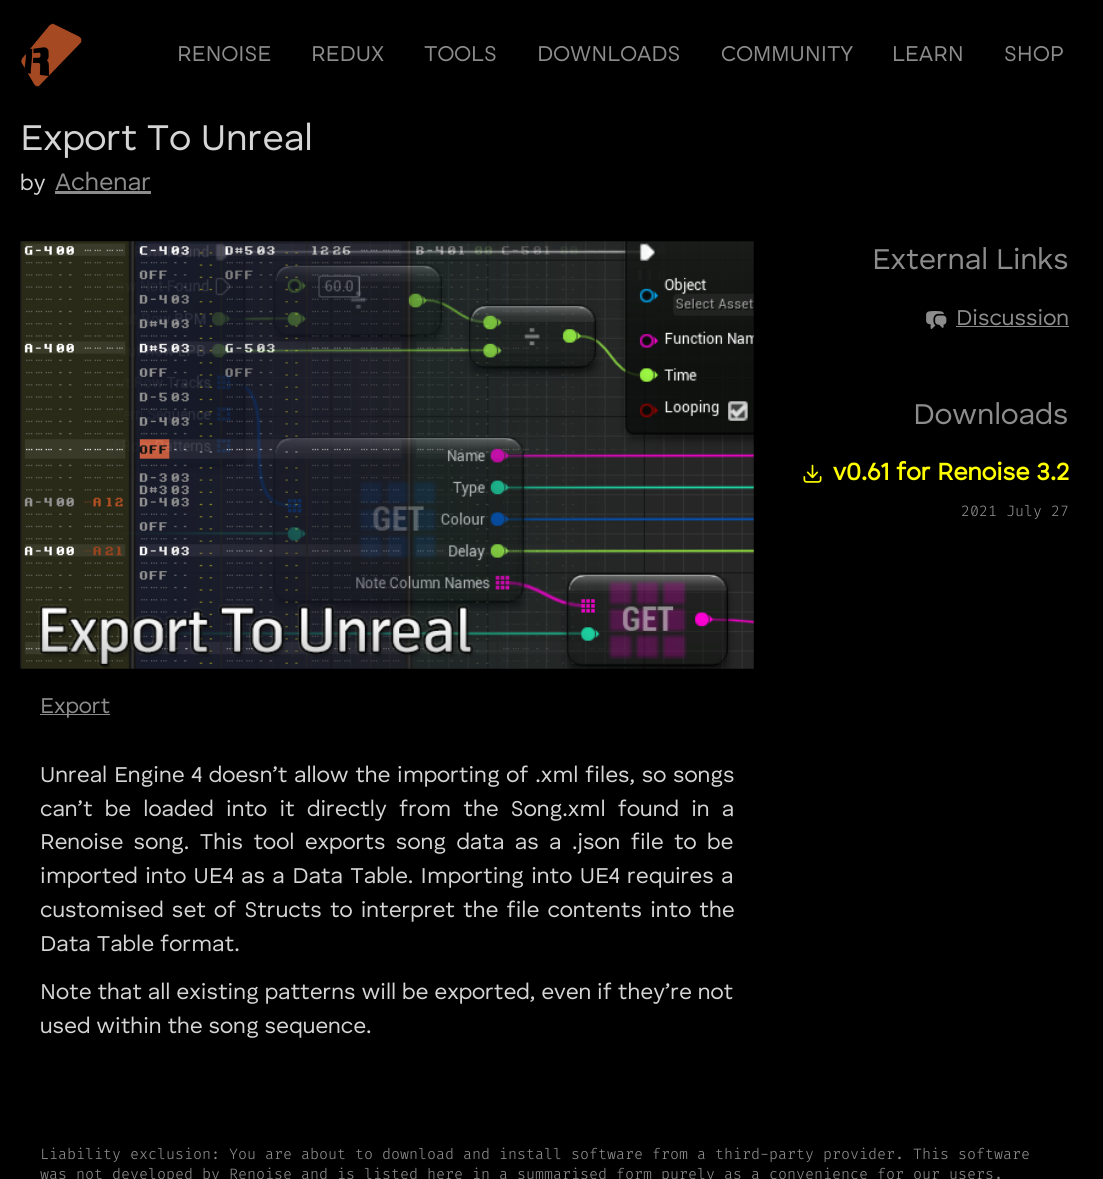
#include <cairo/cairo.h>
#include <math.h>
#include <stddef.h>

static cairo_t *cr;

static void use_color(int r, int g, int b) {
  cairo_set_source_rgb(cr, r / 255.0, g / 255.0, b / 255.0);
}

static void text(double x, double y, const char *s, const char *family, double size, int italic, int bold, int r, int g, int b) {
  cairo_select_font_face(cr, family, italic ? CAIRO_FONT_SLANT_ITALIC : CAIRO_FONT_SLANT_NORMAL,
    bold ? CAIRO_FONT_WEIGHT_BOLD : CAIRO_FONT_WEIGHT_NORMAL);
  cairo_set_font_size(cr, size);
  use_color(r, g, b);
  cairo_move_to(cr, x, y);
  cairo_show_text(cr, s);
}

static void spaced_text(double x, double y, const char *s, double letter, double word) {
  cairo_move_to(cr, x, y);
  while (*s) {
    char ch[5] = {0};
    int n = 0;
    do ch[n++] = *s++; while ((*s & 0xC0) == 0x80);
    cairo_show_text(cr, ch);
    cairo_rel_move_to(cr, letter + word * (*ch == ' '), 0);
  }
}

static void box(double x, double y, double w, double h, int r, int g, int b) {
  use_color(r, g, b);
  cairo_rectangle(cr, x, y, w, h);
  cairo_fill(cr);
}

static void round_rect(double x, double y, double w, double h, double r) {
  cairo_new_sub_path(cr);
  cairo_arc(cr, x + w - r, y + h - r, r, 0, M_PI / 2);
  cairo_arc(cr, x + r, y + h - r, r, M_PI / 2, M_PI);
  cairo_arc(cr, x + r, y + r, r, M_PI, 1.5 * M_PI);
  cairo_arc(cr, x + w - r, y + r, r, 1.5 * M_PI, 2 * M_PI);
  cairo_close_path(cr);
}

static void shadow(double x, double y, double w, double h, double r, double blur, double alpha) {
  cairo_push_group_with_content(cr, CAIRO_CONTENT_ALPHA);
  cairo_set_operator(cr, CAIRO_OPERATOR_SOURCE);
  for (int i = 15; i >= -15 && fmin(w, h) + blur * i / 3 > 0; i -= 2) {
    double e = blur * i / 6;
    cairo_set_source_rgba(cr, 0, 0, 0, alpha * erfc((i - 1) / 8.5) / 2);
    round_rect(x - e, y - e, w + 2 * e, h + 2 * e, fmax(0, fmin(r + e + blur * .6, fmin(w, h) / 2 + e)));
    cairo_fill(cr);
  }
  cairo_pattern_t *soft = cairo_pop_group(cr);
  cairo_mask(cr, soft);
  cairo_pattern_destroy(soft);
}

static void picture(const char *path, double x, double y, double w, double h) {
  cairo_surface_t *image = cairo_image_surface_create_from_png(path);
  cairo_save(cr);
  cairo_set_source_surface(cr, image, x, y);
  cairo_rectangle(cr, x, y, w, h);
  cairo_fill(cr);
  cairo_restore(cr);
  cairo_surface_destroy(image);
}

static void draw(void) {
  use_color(0, 0, 0);
  cairo_paint(cr);
  cairo_save(cr);
  cairo_rectangle(cr, 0, 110, 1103, 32);
  cairo_clip(cr);
  shadow(6, 31, 1092, 98, 0, 15.5, 0.1);
  cairo_restore(cr);
  picture("img_01.png", 21, 23, 61, 64);
  box(55, 191, 96, 3, 140, 140, 140);
  picture("img_02.png", 926, 311, 21, 18);
  box(956, 326, 113, 1, 140, 140, 140);
  picture("img_03.png", 803, 464, 19, 19);
  picture("img_04.png", 20, 241, 734, 428);
  box(40, 714, 70, 1, 140, 140, 140);
  text(177, 61, "RENOISE", "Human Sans", 22.5, 0, 0, 140, 140, 140);
  text(311, 61, "REDUX", "Human Sans", 22.5, 0, 0, 140, 140, 140);
  text(424, 61, "TOOLS", "Human Sans", 22.5, 0, 0, 140, 140, 140);
  text(537, 61, "DOWNLOADS", "Human Sans", 22.5, 0, 0, 140, 140, 140);
  text(721, 61, "COMMUNITY", "Human Sans", 22.5, 0, 0, 140, 140, 140);
  text(892, 61, "LEARN", "Human Sans", 22.5, 0, 0, 140, 140, 140);
  text(1004, 61, "SHOP", "Human Sans", 22.5, 0, 0, 140, 140, 140);
  text(20, 150, "Export To Unreal", "Human Sans", 37.5, 0, 0, 213, 213, 213);
  text(20, 190, "by", "Human Sans", 22.5, 0, 0, 213, 213, 213);
  text(55, 190, "Achenar", "Human Sans", 25, 0, 0, 140, 140, 140);
  text(872, 269, "External Links", "Human Sans", 30, 0, 0, 140, 140, 140);
  text(956, 325, "Discussion", "Human Sans", 22.5, 0, 0, 140, 140, 140);
  text(913, 424, "Downloads", "Human Sans", 30, 0, 0, 140, 140, 140);
  text(833, 480, "v0.61 for Renoise 3.2", "Human Sans", 25, 0, 1, 255, 255, 0);
  text(961, 516, "2021 July 27", "Fira Code Light", 15, 0, 0, 140, 140, 140);
  text(40, 713, "Export", "Human Sans", 22.5, 0, 0, 140, 140, 140);
  use_color(213, 213, 213);
  spaced_text(40, 782, "Unreal Engine 4 doesn’t allow the importing of .xml files, so songs", 0, 0.75);
  spaced_text(40, 816, "can’t be loaded into it directly from the Song.xml found in a", 0, 6.4);
  spaced_text(40, 849, "Renoise song. This tool exports song data as a .json file to be", 0, 4.5);
  spaced_text(40, 883, "imported into UE4 as a Data Table. Importing into UE4 requires a", 0, 1.5);
  spaced_text(40, 917, "customised set of Structs to interpret the file contents into the", 0, 2.25);
  text(40, 951, "Data Table format.", "Human Sans", 22.5, 0, 0, 213, 213, 213);
  text(40, 999, "Note that all existing patterns will be exported, even if they’re not", "Human Sans", 22.5, 0, 0, 213, 213, 213);
  text(40, 1033, "used within the song sequence.", "Human Sans", 22.5, 0, 0, 213, 213, 213);
  text(40, 1159, "Liability exclusion: You are about to download and install software from a third-party provider. This software", "Fira Code Light", 15, 0, 0, 140, 140, 140);
  text(40, 1179, "was not developed by Renoise and is listed here in a summarised form purely as a convenience for our users.", "Fira Code Light", 15, 0, 0, 140, 140, 140);
}

int main(void) {
  cairo_surface_t *surface = cairo_image_surface_create(CAIRO_FORMAT_RGB24, 1103, 1179);
  cr = cairo_create(surface);
  cairo_font_options_t *options = cairo_font_options_create();
  cairo_font_options_set_hint_metrics(options, CAIRO_HINT_METRICS_OFF);
  cairo_font_options_set_hint_style(options, CAIRO_HINT_STYLE_NONE);
  cairo_set_font_options(cr, options);
  cairo_set_miter_limit(cr, 4);
  draw();
  cairo_surface_write_to_png(surface, "out.png");
  cairo_font_options_destroy(options);
  cairo_destroy(cr);
  cairo_surface_destroy(surface);
  return 0;
}
